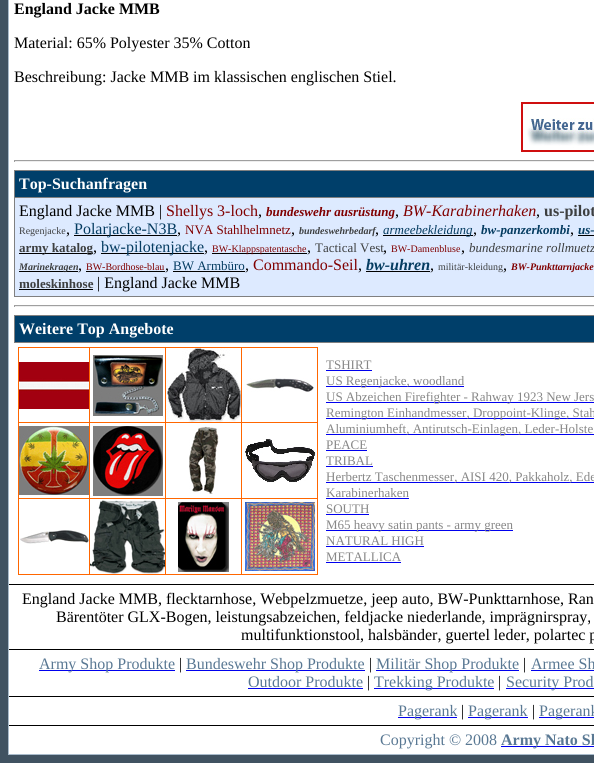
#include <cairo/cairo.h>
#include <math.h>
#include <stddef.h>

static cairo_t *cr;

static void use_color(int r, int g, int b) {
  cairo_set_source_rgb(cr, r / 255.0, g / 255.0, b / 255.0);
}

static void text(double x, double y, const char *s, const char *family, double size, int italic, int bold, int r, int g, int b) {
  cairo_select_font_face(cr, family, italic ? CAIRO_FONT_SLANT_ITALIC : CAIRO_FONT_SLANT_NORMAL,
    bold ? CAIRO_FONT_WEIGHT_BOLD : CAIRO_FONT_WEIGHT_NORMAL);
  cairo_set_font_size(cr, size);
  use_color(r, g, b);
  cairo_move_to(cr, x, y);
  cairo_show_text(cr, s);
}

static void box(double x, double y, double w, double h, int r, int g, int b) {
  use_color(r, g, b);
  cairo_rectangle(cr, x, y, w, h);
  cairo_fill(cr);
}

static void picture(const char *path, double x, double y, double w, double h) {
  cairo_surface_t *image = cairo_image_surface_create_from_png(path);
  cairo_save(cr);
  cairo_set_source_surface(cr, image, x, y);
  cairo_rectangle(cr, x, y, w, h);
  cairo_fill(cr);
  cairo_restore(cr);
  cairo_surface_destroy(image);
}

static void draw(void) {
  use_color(64, 82, 97);
  cairo_paint(cr);
  box(9, 0, 585, 754, 255, 255, 255);
  box(8, 754, 586, 1, 169, 187, 203);
  box(8, 0, 1, 755, 169, 187, 203);
  picture("img_01.png", 521, 102, 73, 50);
  box(14, 160, 580, 1, 159, 159, 159);
  box(14, 161, 580, 1, 238, 238, 238);
  box(14, 160, 1, 2, 159, 159, 159);
  box(14, 170, 580, 1, 128, 128, 128);
  box(14, 296, 580, 1, 128, 128, 128);
  box(14, 170, 1, 127, 128, 128, 128);
  box(15, 171, 579, 26, 0, 63, 106);
  box(15, 198, 579, 98, 221, 234, 255);
  box(14, 197, 580, 1, 128, 128, 128);
  box(74, 235, 103, 1, 0, 0, 0);
  box(383, 235, 90, 1, 0, 0, 0);
  box(578, 235, 16, 1, 0, 0, 0);
  box(19, 253, 74, 1, 0, 0, 0);
  box(101, 253, 103, 1, 0, 0, 0);
  box(212, 253, 95, 1, 0, 0, 0);
  box(19, 271, 59, 1, 0, 0, 0);
  box(86, 271, 79, 1, 0, 0, 0);
  box(173, 271, 72, 1, 0, 0, 0);
  box(366, 271, 64, 1, 0, 0, 0);
  box(19, 289, 74, 1, 0, 0, 0);
  box(14, 305, 580, 1, 159, 159, 159);
  box(14, 306, 580, 1, 238, 238, 238);
  box(14, 305, 1, 2, 159, 159, 159);
  box(14, 315, 580, 1, 128, 128, 128);
  box(14, 342, 580, 1, 128, 128, 128);
  box(14, 315, 1, 28, 128, 128, 128);
  box(15, 316, 579, 26, 0, 63, 106);
  box(18, 347, 300, 1, 255, 102, 0);
  box(317, 347, 1, 228, 255, 102, 0);
  box(18, 574, 300, 1, 255, 102, 0);
  box(18, 347, 1, 228, 255, 102, 0);
  picture("img_02.png", 19, 362, 70, 47);
  box(241, 422, 77, 1, 255, 102, 0);
  box(241, 498, 77, 1, 255, 102, 0);
  box(241, 498, 1, 77, 255, 102, 0);
  box(165, 498, 77, 1, 255, 102, 0);
  box(241, 422, 1, 77, 255, 102, 0);
  box(165, 422, 77, 1, 255, 102, 0);
  box(165, 498, 1, 77, 255, 102, 0);
  box(89, 498, 77, 1, 255, 102, 0);
  box(165, 422, 1, 77, 255, 102, 0);
  box(89, 422, 77, 1, 255, 102, 0);
  box(89, 498, 1, 77, 255, 102, 0);
  box(18, 498, 72, 1, 255, 102, 0);
  box(89, 422, 1, 77, 255, 102, 0);
  box(18, 422, 72, 1, 255, 102, 0);
  box(89, 347, 1, 76, 255, 102, 0);
  picture("img_03.png", 93, 355, 70, 61);
  box(165, 347, 1, 76, 255, 102, 0);
  picture("img_04.png", 166, 348, 75, 74);
  box(241, 347, 1, 76, 255, 102, 0);
  picture("img_05.png", 246, 378, 68, 14);
  picture("img_06.png", 19, 426, 70, 69);
  picture("img_07.png", 93, 426, 70, 70);
  picture("img_08.png", 189, 426, 30, 68);
  picture("img_09.png", 245, 438, 71, 45);
  picture("img_10.png", 20, 530, 69, 14);
  picture("img_11.png", 90, 500, 75, 74);
  picture("img_12.png", 178, 502, 51, 70);
  picture("img_13.png", 245, 502, 70, 69);
  box(326, 370, 46, 1, 0, 0, 238);
  box(326, 386, 138, 1, 0, 0, 238);
  box(326, 402, 268, 1, 0, 0, 238);
  box(326, 418, 268, 1, 0, 0, 238);
  box(326, 434, 268, 1, 0, 0, 238);
  box(326, 450, 41, 1, 0, 0, 238);
  box(326, 466, 47, 1, 0, 0, 238);
  box(326, 482, 268, 1, 0, 0, 238);
  box(326, 498, 83, 1, 0, 0, 238);
  box(326, 514, 43, 1, 0, 0, 238);
  box(326, 530, 187, 1, 0, 0, 238);
  box(326, 546, 98, 1, 0, 0, 238);
  box(326, 562, 75, 1, 0, 0, 238);
  box(9, 584, 585, 1, 0, 0, 0);
  box(9, 649, 585, 1, 0, 0, 0);
  box(39, 670, 136, 1, 0, 0, 238);
  box(186, 670, 179, 1, 0, 0, 238);
  box(376, 670, 143, 1, 0, 0, 238);
  box(531, 670, 63, 1, 0, 0, 238);
  box(248, 688, 115, 1, 0, 0, 238);
  box(374, 688, 120, 1, 0, 0, 238);
  box(506, 688, 88, 1, 0, 0, 238);
  box(9, 696, 585, 1, 0, 0, 0);
  box(398, 717, 59, 1, 0, 0, 238);
  box(468, 717, 60, 1, 0, 0, 238);
  box(539, 717, 55, 1, 0, 0, 238);
  box(9, 725, 585, 1, 0, 0, 0);
  box(501, 746, 93, 1, 0, 0, 238);
  text(14, 14, "England Jacke MMB", "Liberation Serif", 16, 0, 1, 0, 0, 0);
  text(14, 48, "Material: 65% Polyester 35% Cotton", "Liberation Serif", 16, 0, 0, 0, 0, 0);
  text(14, 82, "Beschreibung: Jacke MMB im klassischen englischen Stiel.", "Liberation Serif", 16, 0, 0, 0, 0, 0);
  text(19, 189, "Top-Suchanfragen", "Liberation Serif", 16, 0, 1, 255, 255, 255);
  text(19, 216, "England Jacke MMB |", "Liberation Serif", 16, 0, 0, 0, 0, 0);
  text(166, 216, "Shellys 3-loch", "Liberation Serif", 16, 0, 0, 128, 0, 0);
  text(258, 216, ",", "Liberation Serif", 16, 0, 0, 0, 0, 0);
  text(266, 216, "bundeswehr ausrüstung", "Liberation Serif", 13, 1, 1, 128, 0, 0);
  text(395, 216, ",", "Liberation Serif", 16, 0, 0, 0, 0, 0);
  text(403, 216, "BW-Karabinerhaken", "Liberation Serif", 16, 1, 0, 128, 0, 0);
  text(536, 216, ",", "Liberation Serif", 16, 0, 0, 0, 0, 0);
  text(544, 216, "us-pilot", "Liberation Serif", 16, 0, 1, 61, 63, 64);
  text(19, 234, "Regenjacke", "Liberation Serif", 10, 0, 0, 61, 63, 64);
  text(66, 234, ",", "Liberation Serif", 16, 0, 0, 0, 0, 0);
  text(74, 234, "Polarjacke-N3B", "Liberation Serif", 16, 0, 0, 5, 60, 97);
  text(177, 234, ",", "Liberation Serif", 16, 0, 0, 0, 0, 0);
  text(185, 234, "NVA Stahlhelmnetz", "Liberation Serif", 13, 0, 0, 128, 0, 0);
  text(291, 234, ",", "Liberation Serif", 16, 0, 0, 0, 0, 0);
  text(299, 234, "bundeswehrbedarf", "Liberation Serif", 10, 1, 1, 61, 63, 64);
  text(375, 234, ",", "Liberation Serif", 16, 0, 0, 0, 0, 0);
  text(383, 234, "armeebekleidung", "Liberation Serif", 13, 1, 0, 5, 60, 97);
  text(473, 234, ",", "Liberation Serif", 16, 0, 0, 0, 0, 0);
  text(481, 234, "bw-panzerkombi", "Liberation Serif", 13, 1, 1, 5, 60, 97);
  text(570, 234, ",", "Liberation Serif", 16, 0, 0, 0, 0, 0);
  text(578, 234, "us-", "Liberation Serif", 13, 1, 1, 5, 60, 97);
  text(19, 252, "army katalog", "Liberation Serif", 13, 0, 1, 61, 63, 64);
  text(93, 252, ",", "Liberation Serif", 16, 0, 0, 0, 0, 0);
  text(101, 252, "bw-pilotenjacke", "Liberation Serif", 16, 0, 0, 5, 60, 97);
  text(204, 252, ",", "Liberation Serif", 16, 0, 0, 0, 0, 0);
  text(212, 252, "BW-Klappspatentasche", "Liberation Serif", 10, 0, 0, 128, 0, 0);
  text(307, 252, ",", "Liberation Serif", 16, 0, 0, 0, 0, 0);
  text(315, 252, "Tactical Vest", "Liberation Serif", 13, 0, 0, 61, 63, 64);
  text(383, 252, ",", "Liberation Serif", 16, 0, 0, 0, 0, 0);
  text(391, 252, "BW-Damenbluse", "Liberation Serif", 10, 0, 0, 128, 0, 0);
  text(461, 252, ",", "Liberation Serif", 16, 0, 0, 0, 0, 0);
  text(469, 252, "bundesmarine rollmuetz", "Liberation Serif", 13, 1, 0, 61, 63, 64);
  text(19, 270, "Marinekragen", "Liberation Serif", 10, 1, 1, 61, 63, 64);
  text(78, 270, ",", "Liberation Serif", 16, 0, 0, 0, 0, 0);
  text(86, 270, "BW-Bordhose-blau", "Liberation Serif", 10, 0, 0, 128, 0, 0);
  text(165, 270, ",", "Liberation Serif", 16, 0, 0, 0, 0, 0);
  text(173, 270, "BW Armbüro", "Liberation Serif", 13, 0, 0, 5, 60, 97);
  text(245, 270, ",", "Liberation Serif", 16, 0, 0, 0, 0, 0);
  text(253, 270, "Commando-Seil", "Liberation Serif", 16, 0, 0, 128, 0, 0);
  text(358, 270, ",", "Liberation Serif", 16, 0, 0, 0, 0, 0);
  text(366, 270, "bw-uhren", "Liberation Serif", 16, 1, 1, 5, 60, 97);
  text(430, 270, ",", "Liberation Serif", 16, 0, 0, 0, 0, 0);
  text(438, 270, "militär-kleidung", "Liberation Serif", 10, 0, 0, 61, 63, 64);
  text(503, 270, ",", "Liberation Serif", 16, 0, 0, 0, 0, 0);
  text(511, 270, "BW-Punkttarnjacke", "Liberation Serif", 10, 1, 1, 128, 0, 0);
  text(19, 288, "moleskinhose", "Liberation Serif", 13, 0, 1, 61, 63, 64);
  text(97, 288, "| England Jacke MMB", "Liberation Serif", 16, 0, 0, 0, 0, 0);
  text(19, 334, "Weitere Top Angebote", "Liberation Serif", 16, 0, 1, 255, 255, 255);
  text(326, 369, "TSHIRT", "Liberation Serif", 13, 0, 0, 135, 135, 135);
  text(326, 385, "US Regenjacke, woodland", "Liberation Serif", 13, 0, 0, 135, 135, 135);
  text(326, 401, "US Abzeichen Firefighter - Rahway 1923 New Jers", "Liberation Serif", 13, 0, 0, 135, 135, 135);
  text(326, 417, "Remington Einhandmesser, Droppoint-Klinge, Stah", "Liberation Serif", 13, 0, 0, 135, 135, 135);
  text(326, 433, "Aluminiumheft, Antirutsch-Einlagen, Leder-Holste", "Liberation Serif", 13, 0, 0, 135, 135, 135);
  text(326, 449, "PEACE", "Liberation Serif", 13, 0, 0, 135, 135, 135);
  text(326, 465, "TRIBAL", "Liberation Serif", 13, 0, 0, 135, 135, 135);
  text(326, 481, "Herbertz Taschenmesser, AISI 420, Pakkaholz, Ede", "Liberation Serif", 13, 0, 0, 135, 135, 135);
  text(326, 497, "Karabinerhaken", "Liberation Serif", 13, 0, 0, 135, 135, 135);
  text(326, 513, "SOUTH", "Liberation Serif", 13, 0, 0, 135, 135, 135);
  text(326, 529, "M65 heavy satin pants - army green", "Liberation Serif", 13, 0, 0, 135, 135, 135);
  text(326, 545, "NATURAL HIGH", "Liberation Serif", 13, 0, 0, 135, 135, 135);
  text(326, 561, "METALLICA", "Liberation Serif", 13, 0, 0, 135, 135, 135);
  text(22, 604, "England Jacke MMB, flecktarnhose, Webpelzmuetze, jeep auto, BW-Punkttarnhose, Ran", "Liberation Serif", 16, 0, 0, 0, 0, 0);
  text(56, 622, "Bärentöter GLX-Bogen, leistungsabzeichen, feldjacke niederlande, imprägnirspray,", "Liberation Serif", 16, 0, 0, 0, 0, 0);
  text(241, 640, "multifunktionstool, halsbänder, guertel leder, polartec p", "Liberation Serif", 16, 0, 0, 0, 0, 0);
  text(39, 669, "Army Shop Produkte", "Liberation Serif", 16, 0, 0, 89, 120, 147);
  text(179, 669, "|", "Liberation Serif", 16, 0, 0, 0, 0, 0);
  text(186, 669, "Bundeswehr Shop Produkte", "Liberation Serif", 16, 0, 0, 89, 120, 147);
  text(369, 669, "|", "Liberation Serif", 16, 0, 0, 0, 0, 0);
  text(376, 669, "Militär Shop Produkte", "Liberation Serif", 16, 0, 0, 89, 120, 147);
  text(523, 669, "|", "Liberation Serif", 16, 0, 0, 0, 0, 0);
  text(531, 669, "Armee Sh", "Liberation Serif", 16, 0, 0, 89, 120, 147);
  text(248, 687, "Outdoor Produkte", "Liberation Serif", 16, 0, 0, 89, 120, 147);
  text(367, 687, "|", "Liberation Serif", 16, 0, 0, 0, 0, 0);
  text(374, 687, "Trekking Produkte", "Liberation Serif", 16, 0, 0, 89, 120, 147);
  text(498, 687, "|", "Liberation Serif", 16, 0, 0, 0, 0, 0);
  text(506, 687, "Security Prod", "Liberation Serif", 16, 0, 0, 89, 120, 147);
  text(398, 716, "Pagerank", "Liberation Serif", 16, 0, 0, 89, 120, 147);
  text(461, 716, "|", "Liberation Serif", 16, 0, 0, 0, 0, 0);
  text(468, 716, "Pagerank", "Liberation Serif", 16, 0, 0, 89, 120, 147);
  text(532, 716, "|", "Liberation Serif", 16, 0, 0, 0, 0, 0);
  text(539, 716, "Pagerank", "Liberation Serif", 16, 0, 0, 89, 120, 147);
  text(380, 745, "Copyright © 2008", "Liberation Serif", 16, 0, 0, 89, 120, 147);
  text(501, 745, "Army Nato Sh", "Liberation Serif", 16, 0, 1, 89, 120, 147);
}

int main(void) {
  cairo_surface_t *surface = cairo_image_surface_create(CAIRO_FORMAT_RGB24, 594, 763);
  cr = cairo_create(surface);
  cairo_font_options_t *options = cairo_font_options_create();
  cairo_font_options_set_hint_metrics(options, CAIRO_HINT_METRICS_OFF);
  cairo_font_options_set_hint_style(options, CAIRO_HINT_STYLE_NONE);
  cairo_set_font_options(cr, options);
  cairo_set_miter_limit(cr, 4);
  draw();
  cairo_surface_write_to_png(surface, "out.png");
  cairo_font_options_destroy(options);
  cairo_destroy(cr);
  cairo_surface_destroy(surface);
  return 0;
}
